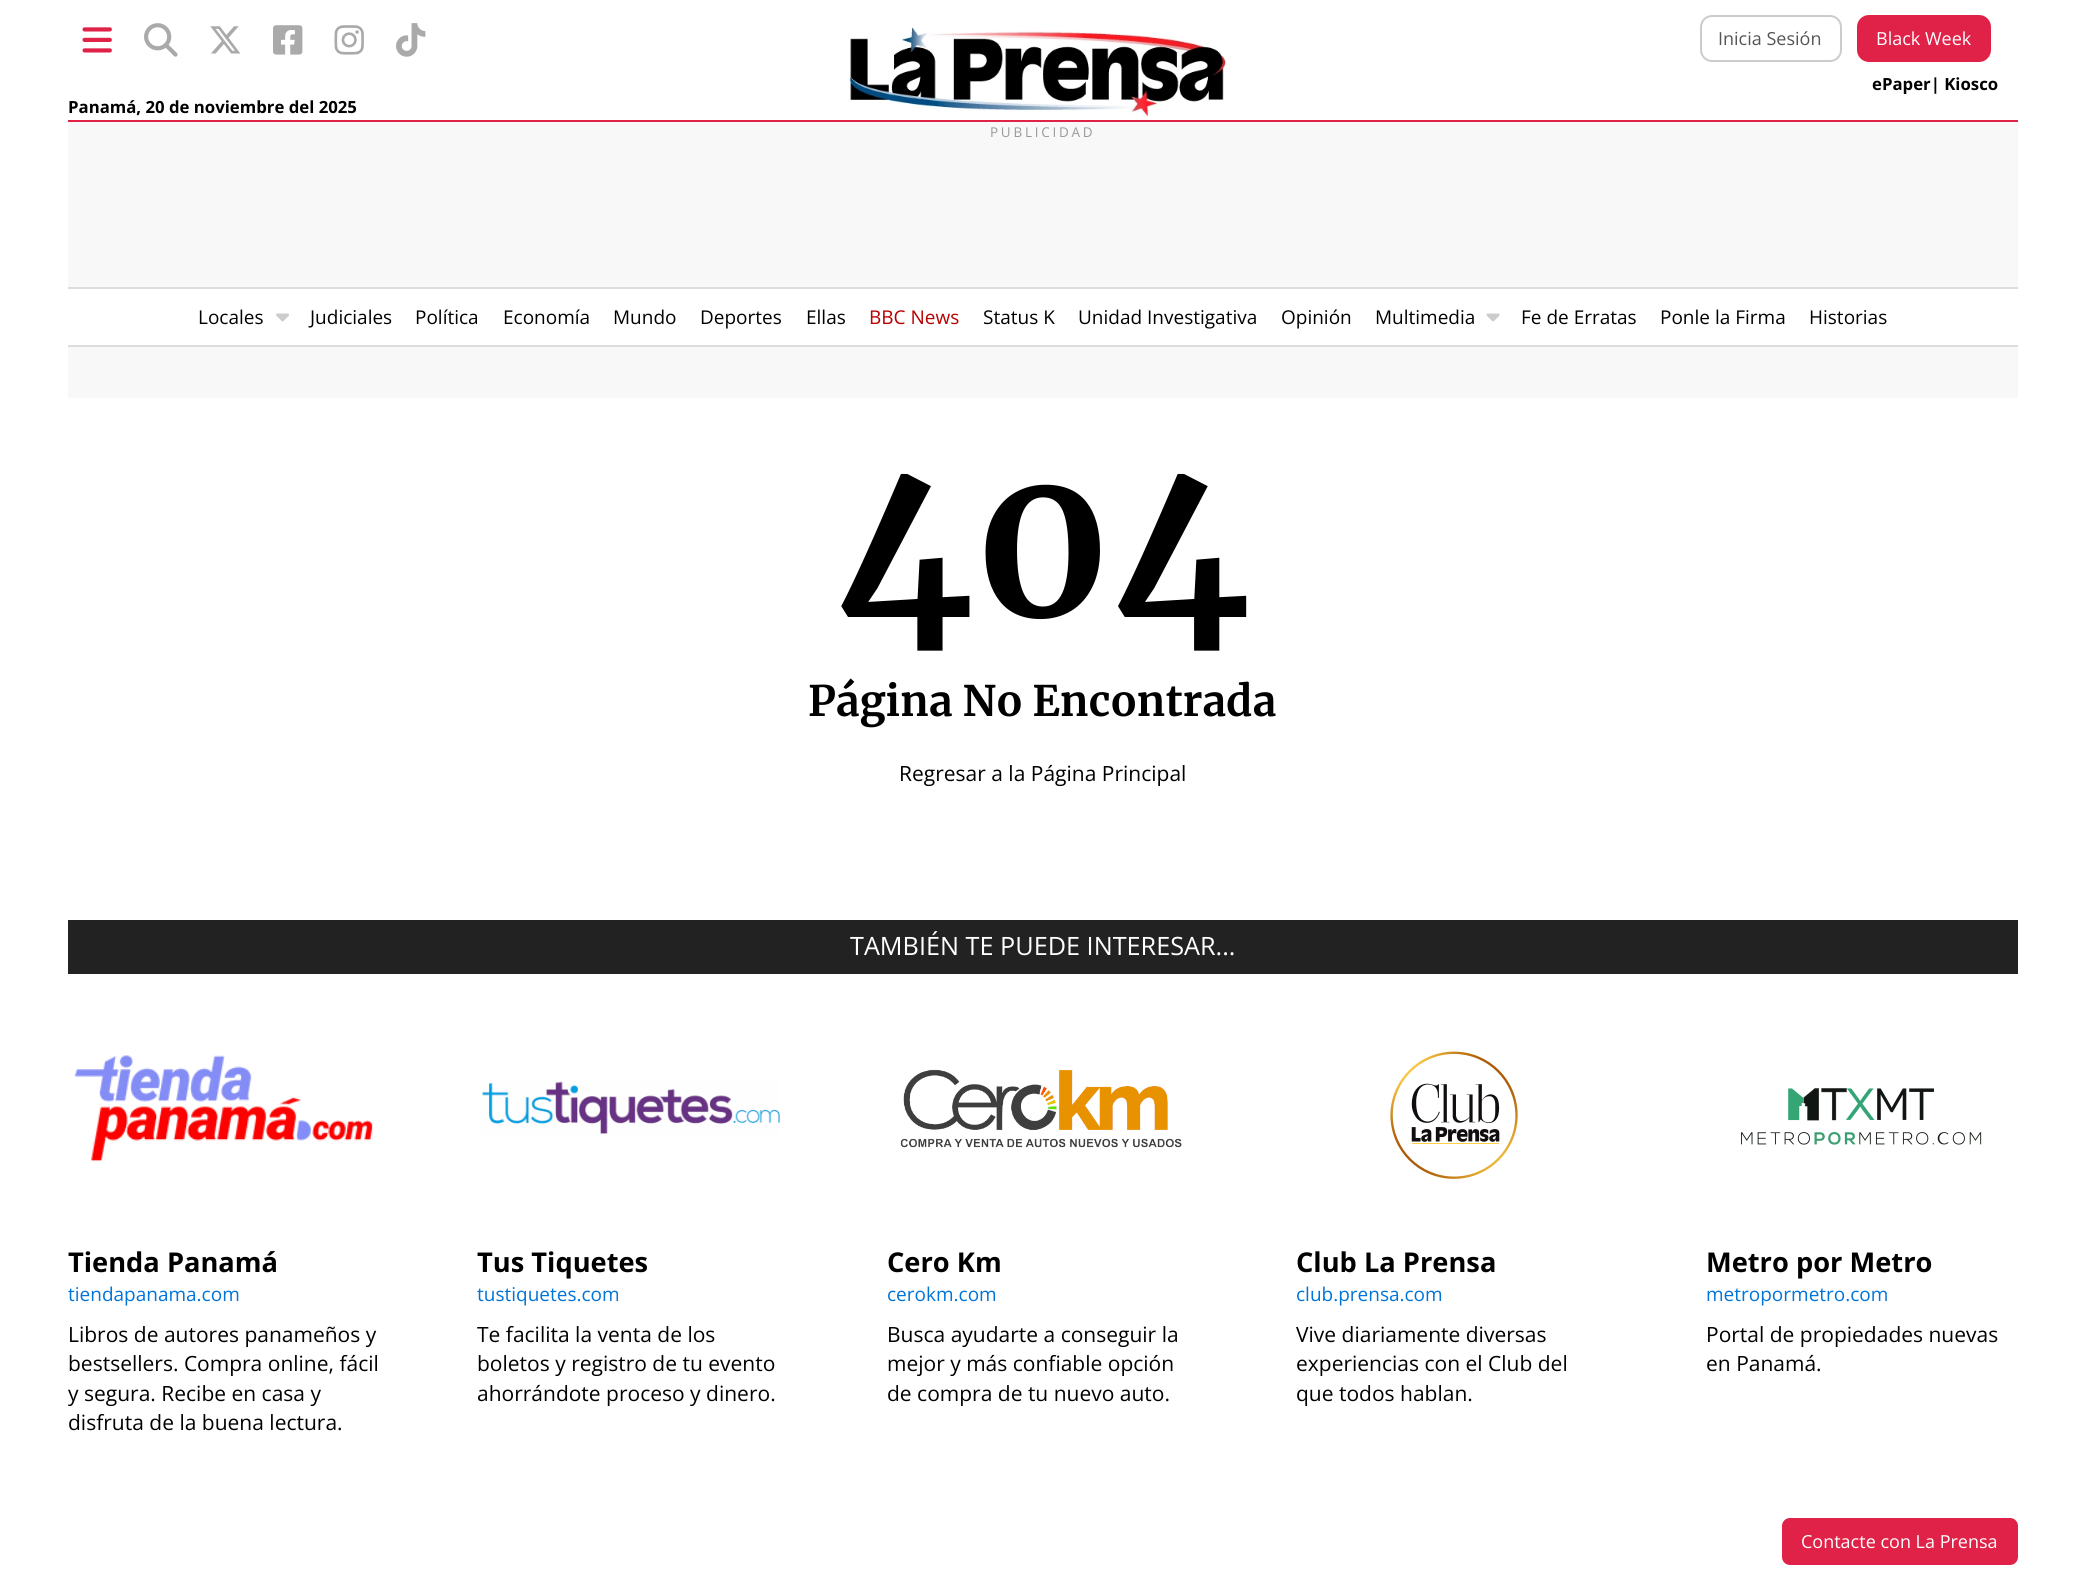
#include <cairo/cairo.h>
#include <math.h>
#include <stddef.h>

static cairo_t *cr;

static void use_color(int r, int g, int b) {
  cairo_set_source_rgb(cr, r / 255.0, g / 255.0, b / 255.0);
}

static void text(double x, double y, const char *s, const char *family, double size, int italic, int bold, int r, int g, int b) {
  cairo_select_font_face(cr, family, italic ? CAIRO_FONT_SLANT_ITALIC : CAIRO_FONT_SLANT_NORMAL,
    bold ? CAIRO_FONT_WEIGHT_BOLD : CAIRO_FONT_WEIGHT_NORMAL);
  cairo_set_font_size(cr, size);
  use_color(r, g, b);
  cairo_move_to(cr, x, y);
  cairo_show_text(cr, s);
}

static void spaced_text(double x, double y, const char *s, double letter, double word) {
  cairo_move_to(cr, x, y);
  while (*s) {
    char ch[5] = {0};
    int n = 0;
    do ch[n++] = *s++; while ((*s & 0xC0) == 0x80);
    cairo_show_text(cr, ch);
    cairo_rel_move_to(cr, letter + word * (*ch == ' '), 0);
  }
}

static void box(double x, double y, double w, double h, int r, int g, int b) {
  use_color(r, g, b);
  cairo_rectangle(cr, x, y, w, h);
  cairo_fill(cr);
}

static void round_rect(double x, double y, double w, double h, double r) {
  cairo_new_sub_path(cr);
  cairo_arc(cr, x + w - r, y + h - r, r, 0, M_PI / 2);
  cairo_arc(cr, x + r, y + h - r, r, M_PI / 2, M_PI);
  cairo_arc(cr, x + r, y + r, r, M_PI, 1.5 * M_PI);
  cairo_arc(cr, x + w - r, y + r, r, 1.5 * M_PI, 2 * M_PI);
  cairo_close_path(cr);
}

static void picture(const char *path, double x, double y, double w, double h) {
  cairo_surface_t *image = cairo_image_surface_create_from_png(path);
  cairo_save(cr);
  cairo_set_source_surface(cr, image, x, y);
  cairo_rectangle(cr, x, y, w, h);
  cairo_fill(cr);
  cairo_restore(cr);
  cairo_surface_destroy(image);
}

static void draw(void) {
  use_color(255, 255, 255);
  cairo_paint(cr);
  box(68, 120, 1950, 2, 225, 34, 72);
  picture("img_01.png", 849, 27, 378, 90);
  round_rect(1701, 16, 140, 45, 11);
  use_color(204, 204, 204);
  cairo_stroke(cr);
  use_color(225, 34, 72);
  round_rect(1857, 15, 134, 47, 12);
  cairo_fill(cr);
  picture("img_02.png", 82, 27, 30, 26);
  picture("img_03.png", 144, 23, 34, 34);
  picture("img_04.png", 210, 26, 31, 28);
  picture("img_05.png", 273, 25, 30, 30);
  picture("img_06.png", 334, 25, 30, 30);
  picture("img_07.png", 396, 23, 30, 34);
  box(68, 122, 1950, 165, 248, 248, 248);
  box(68, 287, 1950, 2, 221, 221, 221);
  box(68, 345, 1950, 2, 221, 221, 221);
  picture("img_08.png", 276, 313, 13, 9);
  picture("img_09.png", 1486, 313, 14, 9);
  box(68, 347, 1950, 51, 248, 248, 248);
  box(68, 920, 1950, 54, 34, 34, 34);
  picture("img_10.png", 74, 1055, 299, 106);
  picture("img_11.png", 481, 1081, 299, 53);
  picture("img_12.png", 900, 1069, 282, 79);
  picture("img_13.png", 1390, 1051, 128, 128);
  picture("img_14.png", 1741, 1088, 241, 57);
  use_color(225, 34, 72);
  round_rect(1782, 1518, 236, 47, 8);
  cairo_fill(cr);
  text(1718, 45, "Inicia Sesión", "Open Sans", 18, 0, 0, 85, 85, 85);
  text(1876, 45, "Black Week", "Open Sans", 18, 0, 0, 255, 255, 255);
  text(1872, 90, "ePaper| Kiosco", "Open Sans", 16.75, 0, 1, 0, 0, 0);
  text(68, 113, "Panamá, 20 de noviembre del 2025", "Open Sans", 16.75, 0, 1, 0, 0, 0);
  cairo_select_font_face(cr, "Open Sans", CAIRO_FONT_SLANT_NORMAL, CAIRO_FONT_WEIGHT_NORMAL);
  cairo_set_font_size(cr, 13.5);
  use_color(153, 153, 153);
  spaced_text(990, 137, "PUBLICIDAD", 2.75, 0);
  text(198, 324, "Locales", "Open Sans", 19, 0, 0, 0, 0, 0);
  text(310, 324, "Judiciales", "Open Sans", 19, 0, 0, 0, 0, 0);
  text(415, 324, "Política", "Open Sans", 19, 0, 0, 0, 0, 0);
  text(503, 324, "Economía", "Open Sans", 19, 0, 0, 0, 0, 0);
  text(613, 324, "Mundo", "Open Sans", 19, 0, 0, 0, 0, 0);
  text(700, 324, "Deportes", "Open Sans", 19, 0, 0, 0, 0, 0);
  text(806, 324, "Ellas", "Open Sans", 19, 0, 0, 0, 0, 0);
  text(869, 324, "BBC News", "Open Sans", 19, 0, 0, 184, 0, 0);
  text(983, 324, "Status K", "Open Sans", 19, 0, 0, 0, 0, 0);
  text(1078, 324, "Unidad Investigativa", "Open Sans", 19, 0, 0, 0, 0, 0);
  text(1281, 324, "Opinión", "Open Sans", 19, 0, 0, 0, 0, 0);
  text(1375, 324, "Multimedia", "Open Sans", 19, 0, 0, 0, 0, 0);
  text(1521, 324, "Fe de Erratas", "Open Sans", 19, 0, 0, 0, 0, 0);
  text(1660, 324, "Ponle la Firma", "Open Sans", 19, 0, 0, 0, 0, 0);
  text(1809, 324, "Historias", "Open Sans", 19, 0, 0, 0, 0, 0);
  text(835, 617, "404", "Merriweather", 210, 0, 1, 0, 0, 0);
  text(808, 716, "Página No Encontrada", "Merriweather", 42, 0, 1, 0, 0, 0);
  text(899, 781, "Regresar a la Página Principal", "Open Sans", 21, 0, 0, 0, 0, 0);
  text(850, 955, "TAMBIÉN TE PUEDE INTERESAR...", "Open Sans", 25.25, 0, 0, 255, 255, 255);
  text(68, 1272, "Tienda Panamá", "Open Sans", 27.25, 0, 1, 0, 0, 0);
  text(68, 1301, "tiendapanama.com", "Open Sans", 19, 0, 0, 0, 116, 217);
  text(68, 1342, "Libros de autores panameños y", "Open Sans", 21, 0, 0, 0, 0, 0);
  text(68, 1371, "bestsellers. Compra online, fácil", "Open Sans", 21, 0, 0, 0, 0, 0);
  cairo_save(cr);
  cairo_rectangle(cr, 68, 1320, 312, 117);
  cairo_clip(cr);
  text(68, 1401, "y segura. Recibe en casa y", "Open Sans", 21, 0, 0, 0, 0, 0);
  cairo_restore(cr);
  text(68, 1430, "disfruta de la buena lectura.", "Open Sans", 21, 0, 0, 0, 0, 0);
  text(477, 1272, "Tus Tiquetes", "Open Sans", 27.25, 0, 1, 0, 0, 0);
  text(477, 1301, "tustiquetes.com", "Open Sans", 19, 0, 0, 0, 116, 217);
  text(477, 1342, "Te facilita la venta de los", "Open Sans", 21, 0, 0, 0, 0, 0);
  text(477, 1371, "boletos y registro de tu evento", "Open Sans", 21, 0, 0, 0, 0, 0);
  text(477, 1401, "ahorrándote proceso y dinero.", "Open Sans", 21, 0, 0, 0, 0, 0);
  text(887, 1272, "Cero Km", "Open Sans", 27.25, 0, 1, 0, 0, 0);
  text(887, 1301, "cerokm.com", "Open Sans", 19, 0, 0, 0, 116, 217);
  text(887, 1342, "Busca ayudarte a conseguir la", "Open Sans", 21, 0, 0, 0, 0, 0);
  text(887, 1371, "mejor y más confiable opción", "Open Sans", 21, 0, 0, 0, 0, 0);
  text(887, 1401, "de compra de tu nuevo auto.", "Open Sans", 21, 0, 0, 0, 0, 0);
  text(1296, 1272, "Club La Prensa", "Open Sans", 27.25, 0, 1, 0, 0, 0);
  text(1296, 1301, "club.prensa.com", "Open Sans", 19, 0, 0, 0, 116, 217);
  text(1296, 1342, "Vive diariamente diversas", "Open Sans", 21, 0, 0, 0, 0, 0);
  text(1296, 1371, "experiencias con el Club del", "Open Sans", 21, 0, 0, 0, 0, 0);
  text(1296, 1401, "que todos hablan.", "Open Sans", 21, 0, 0, 0, 0, 0);
  text(1706, 1272, "Metro por Metro", "Open Sans", 27.25, 0, 1, 0, 0, 0);
  text(1706, 1301, "metropormetro.com", "Open Sans", 19, 0, 0, 0, 116, 217);
  text(1706, 1342, "Portal de propiedades nuevas", "Open Sans", 21, 0, 0, 0, 0, 0);
  text(1706, 1371, "en Panamá.", "Open Sans", 21, 0, 0, 0, 0, 0);
  text(1801, 1548, "Contacte con La Prensa", "Open Sans", 18, 0, 0, 255, 255, 255);
}

int main(void) {
  cairo_surface_t *surface = cairo_image_surface_create(CAIRO_FORMAT_RGB24, 2085, 1570);
  cr = cairo_create(surface);
  cairo_font_options_t *options = cairo_font_options_create();
  cairo_font_options_set_hint_metrics(options, CAIRO_HINT_METRICS_OFF);
  cairo_font_options_set_hint_style(options, CAIRO_HINT_STYLE_NONE);
  cairo_set_font_options(cr, options);
  cairo_set_miter_limit(cr, 4);
  draw();
  cairo_surface_write_to_png(surface, "out.png");
  cairo_font_options_destroy(options);
  cairo_destroy(cr);
  cairo_surface_destroy(surface);
  return 0;
}
